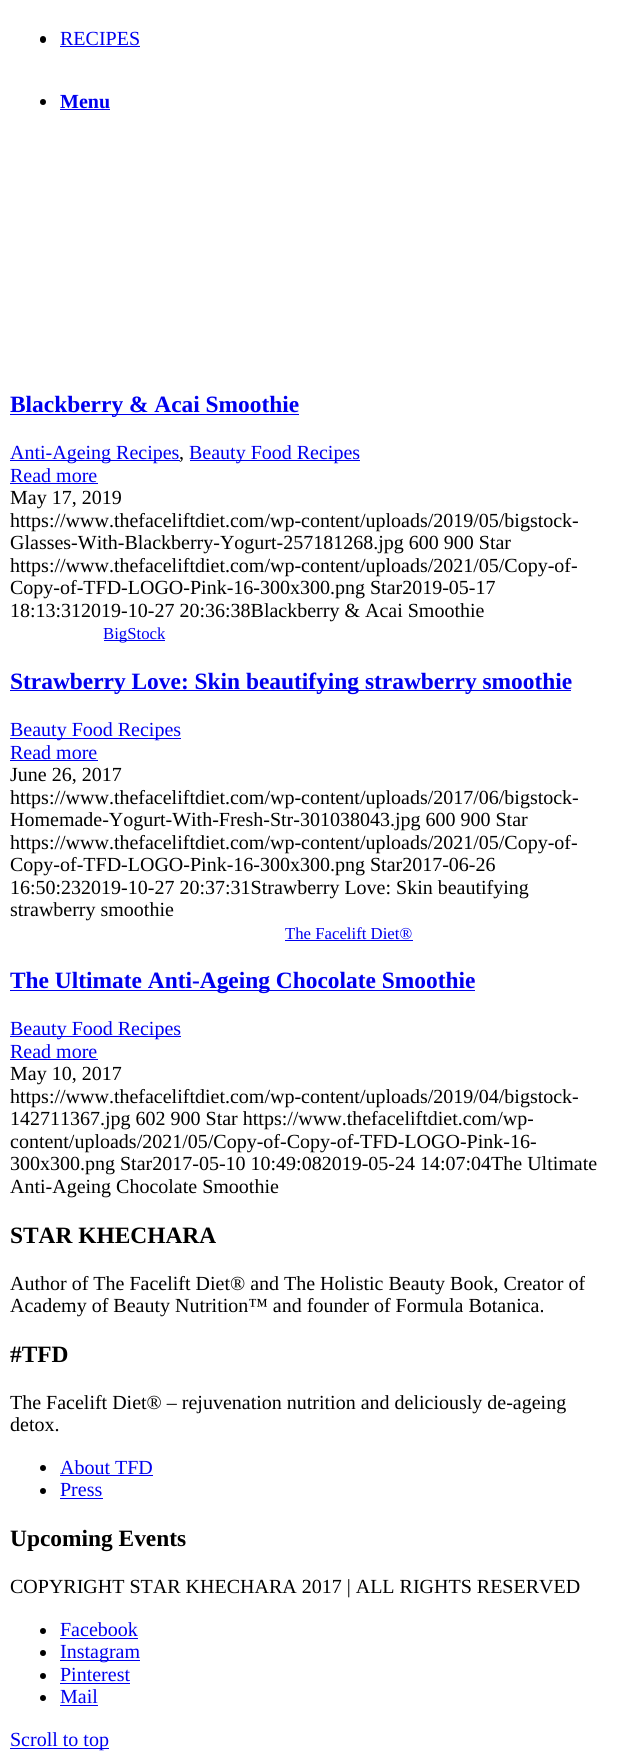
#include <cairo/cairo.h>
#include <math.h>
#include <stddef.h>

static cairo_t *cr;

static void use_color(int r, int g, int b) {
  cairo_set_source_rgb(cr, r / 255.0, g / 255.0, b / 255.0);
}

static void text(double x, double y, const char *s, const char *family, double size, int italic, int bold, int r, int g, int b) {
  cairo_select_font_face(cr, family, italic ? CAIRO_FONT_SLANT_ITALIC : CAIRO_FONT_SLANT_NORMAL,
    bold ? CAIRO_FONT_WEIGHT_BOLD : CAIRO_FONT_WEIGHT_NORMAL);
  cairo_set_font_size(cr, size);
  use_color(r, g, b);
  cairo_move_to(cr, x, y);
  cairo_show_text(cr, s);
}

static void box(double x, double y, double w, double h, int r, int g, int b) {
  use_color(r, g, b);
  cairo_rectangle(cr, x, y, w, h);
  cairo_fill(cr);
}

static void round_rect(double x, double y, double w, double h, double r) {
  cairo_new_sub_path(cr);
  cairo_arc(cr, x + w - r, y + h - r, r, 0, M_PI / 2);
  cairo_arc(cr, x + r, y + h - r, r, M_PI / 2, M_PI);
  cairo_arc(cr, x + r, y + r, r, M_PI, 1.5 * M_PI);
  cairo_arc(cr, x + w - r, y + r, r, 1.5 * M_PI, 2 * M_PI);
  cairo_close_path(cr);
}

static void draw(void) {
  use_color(255, 255, 255);
  cairo_paint(cr);
  use_color(0, 0, 0);
  round_rect(40, 36, 6, 7, 3);
  cairo_fill(cr);
  box(60, 46, 80, 1, 0, 0, 238);
  use_color(0, 0, 0);
  cairo_arc(cr, 43, 102, 3, 0, 2 * M_PI);
  cairo_fill(cr);
  box(60, 109, 50, 1, 0, 0, 238);
  box(10, 414, 289, 1, 0, 0, 238);
  box(10, 460, 170, 1, 0, 0, 238);
  box(190, 460, 170, 1, 0, 0, 238);
  box(10, 483, 88, 1, 0, 0, 238);
  box(104, 640, 61, 1, 0, 0, 238);
  box(10, 690, 561, 1, 0, 0, 238);
  box(10, 738, 171, 1, 0, 0, 238);
  box(10, 760, 88, 1, 0, 0, 238);
  box(285, 940, 128, 1, 0, 0, 238);
  box(10, 990, 465, 1, 0, 0, 238);
  box(10, 1036, 171, 1, 0, 0, 238);
  box(10, 1059, 88, 1, 0, 0, 238);
  use_color(0, 0, 0);
  cairo_arc(cr, 43, 1468, 3, 0, 2 * M_PI);
  cairo_fill(cr);
  box(60, 1475, 93, 1, 0, 0, 238);
  use_color(0, 0, 0);
  cairo_arc(cr, 43, 1491, 3, 0, 2 * M_PI);
  cairo_fill(cr);
  box(60, 1498, 43, 1, 0, 0, 238);
  use_color(0, 0, 0);
  cairo_arc(cr, 43, 1631, 3, 0, 2 * M_PI);
  cairo_fill(cr);
  box(60, 1638, 78, 1, 0, 0, 238);
  use_color(0, 0, 0);
  cairo_arc(cr, 43, 1653, 3, 0, 2 * M_PI);
  cairo_fill(cr);
  box(60, 1660, 80, 1, 0, 0, 238);
  use_color(0, 0, 0);
  cairo_arc(cr, 43, 1676, 3, 0, 2 * M_PI);
  cairo_fill(cr);
  box(60, 1683, 70, 1, 0, 0, 238);
  use_color(0, 0, 0);
  cairo_arc(cr, 43, 1698, 3, 0, 2 * M_PI);
  cairo_fill(cr);
  box(60, 1705, 38, 1, 0, 0, 238);
  box(10, 1748, 99, 1, 0, 0, 238);
  text(60, 45, "RECIPES", "Liberation Serif", 20, 0, 0, 0, 0, 238);
  text(60, 108, "Menu", "Liberation Serif", 20, 0, 1, 0, 0, 238);
  text(10, 412, "Blackberry & Acai Smoothie", "Liberation Serif", 23.4, 0, 1, 0, 0, 238);
  text(10, 459, "Anti-Ageing Recipes", "Liberation Serif", 20, 0, 0, 0, 0, 238);
  text(179, 459, ",", "Liberation Serif", 20, 0, 0, 0, 0, 0);
  text(189, 459, "Beauty Food Recipes", "Liberation Serif", 20, 0, 0, 0, 0, 238);
  text(10, 482, "Read more", "Liberation Serif", 20, 0, 0, 0, 0, 238);
  text(10, 504, "May 17, 2019", "Liberation Serif", 20, 0, 0, 0, 0, 0);
  text(10, 527, "https://www.thefaceliftdiet.com/wp-content/uploads/2019/05/bigstock-", "Liberation Serif", 20, 0, 0, 0, 0, 0);
  text(10, 549, "Glasses-With-Blackberry-Yogurt-257181268.jpg 600 900 Star", "Liberation Serif", 20, 0, 0, 0, 0, 0);
  text(10, 572, "https://www.thefaceliftdiet.com/wp-content/uploads/2021/05/Copy-of-", "Liberation Serif", 20, 0, 0, 0, 0, 0);
  text(10, 594, "Copy-of-TFD-LOGO-Pink-16-300x300.png Star2019-05-17", "Liberation Serif", 20, 0, 0, 0, 0, 0);
  text(10, 617, "18:13:312019-10-27 20:36:38Blackberry & Acai Smoothie", "Liberation Serif", 20, 0, 0, 0, 0, 0);
  text(103, 639, "BigStock", "Liberation Serif", 16.75, 0, 0, 0, 0, 238);
  text(10, 689, "Strawberry Love: Skin beautifying strawberry smoothie", "Liberation Serif", 23.4, 0, 1, 0, 0, 238);
  text(10, 736, "Beauty Food Recipes", "Liberation Serif", 20, 0, 0, 0, 0, 238);
  text(10, 759, "Read more", "Liberation Serif", 20, 0, 0, 0, 0, 238);
  text(10, 781, "June 26, 2017", "Liberation Serif", 20, 0, 0, 0, 0, 0);
  text(10, 804, "https://www.thefaceliftdiet.com/wp-content/uploads/2017/06/bigstock-", "Liberation Serif", 20, 0, 0, 0, 0, 0);
  text(10, 826, "Homemade-Yogurt-With-Fresh-Str-301038043.jpg 600 900 Star", "Liberation Serif", 20, 0, 0, 0, 0, 0);
  text(10, 849, "https://www.thefaceliftdiet.com/wp-content/uploads/2021/05/Copy-of-", "Liberation Serif", 20, 0, 0, 0, 0, 0);
  text(10, 871, "Copy-of-TFD-LOGO-Pink-16-300x300.png Star2017-06-26", "Liberation Serif", 20, 0, 0, 0, 0, 0);
  text(10, 894, "16:50:232019-10-27 20:37:31Strawberry Love: Skin beautifying", "Liberation Serif", 20, 0, 0, 0, 0, 0);
  text(10, 916, "strawberry smoothie", "Liberation Serif", 20, 0, 0, 0, 0, 0);
  text(285, 939, "The Facelift Diet®", "Liberation Serif", 16.75, 0, 0, 0, 0, 238);
  text(10, 988, "The Ultimate Anti-Ageing Chocolate Smoothie", "Liberation Serif", 23.4, 0, 1, 0, 0, 238);
  text(10, 1035, "Beauty Food Recipes", "Liberation Serif", 20, 0, 0, 0, 0, 238);
  text(10, 1058, "Read more", "Liberation Serif", 20, 0, 0, 0, 0, 238);
  text(10, 1080, "May 10, 2017", "Liberation Serif", 20, 0, 0, 0, 0, 0);
  text(10, 1103, "https://www.thefaceliftdiet.com/wp-content/uploads/2019/04/bigstock-", "Liberation Serif", 20, 0, 0, 0, 0, 0);
  text(10, 1125, "142711367.jpg 602 900 Star https://www.thefaceliftdiet.com/wp-", "Liberation Serif", 20, 0, 0, 0, 0, 0);
  text(10, 1148, "content/uploads/2021/05/Copy-of-Copy-of-TFD-LOGO-Pink-16-", "Liberation Serif", 20, 0, 0, 0, 0, 0);
  text(10, 1170, "300x300.png Star2017-05-10 10:49:082019-05-24 14:07:04The Ultimate", "Liberation Serif", 20, 0, 0, 0, 0, 0);
  text(10, 1193, "Anti-Ageing Chocolate Smoothie", "Liberation Serif", 20, 0, 0, 0, 0, 0);
  text(10, 1243, "STAR KHECHARA", "Liberation Serif", 23.4, 0, 1, 0, 0, 0);
  text(10, 1290, "Author of The Facelift Diet® and The Holistic Beauty Book, Creator of", "Liberation Serif", 20, 0, 0, 0, 0, 0);
  text(10, 1312, "Academy of Beauty Nutrition™ and founder of Formula Botanica.", "Liberation Serif", 20, 0, 0, 0, 0, 0);
  text(10, 1362, "#TFD", "Liberation Serif", 23.4, 0, 1, 0, 0, 0);
  text(10, 1409, "The Facelift Diet® – rejuvenation nutrition and deliciously de-ageing", "Liberation Serif", 20, 0, 0, 0, 0, 0);
  text(10, 1431, "detox.", "Liberation Serif", 20, 0, 0, 0, 0, 0);
  text(60, 1474, "About TFD", "Liberation Serif", 20, 0, 0, 0, 0, 238);
  text(60, 1496, "Press", "Liberation Serif", 20, 0, 0, 0, 0, 238);
  text(10, 1546, "Upcoming Events", "Liberation Serif", 23.4, 0, 1, 0, 0, 0);
  text(10, 1593, "COPYRIGHT STAR KHECHARA 2017 | ALL RIGHTS RESERVED", "Liberation Serif", 20, 0, 0, 0, 0, 0);
  text(60, 1636, "Facebook", "Liberation Serif", 20, 0, 0, 0, 0, 238);
  text(60, 1658, "Instagram", "Liberation Serif", 20, 0, 0, 0, 0, 238);
  text(60, 1681, "Pinterest", "Liberation Serif", 20, 0, 0, 0, 0, 238);
  text(60, 1703, "Mail", "Liberation Serif", 20, 0, 0, 0, 0, 238);
  text(10, 1746, "Scroll to top", "Liberation Serif", 20, 0, 0, 0, 0, 238);
}

int main(void) {
  cairo_surface_t *surface = cairo_image_surface_create(CAIRO_FORMAT_RGB24, 623, 1761);
  cr = cairo_create(surface);
  cairo_font_options_t *options = cairo_font_options_create();
  cairo_font_options_set_hint_metrics(options, CAIRO_HINT_METRICS_OFF);
  cairo_font_options_set_hint_style(options, CAIRO_HINT_STYLE_NONE);
  cairo_set_font_options(cr, options);
  cairo_set_miter_limit(cr, 4);
  draw();
  cairo_surface_write_to_png(surface, "out.png");
  cairo_font_options_destroy(options);
  cairo_destroy(cr);
  cairo_surface_destroy(surface);
  return 0;
}
